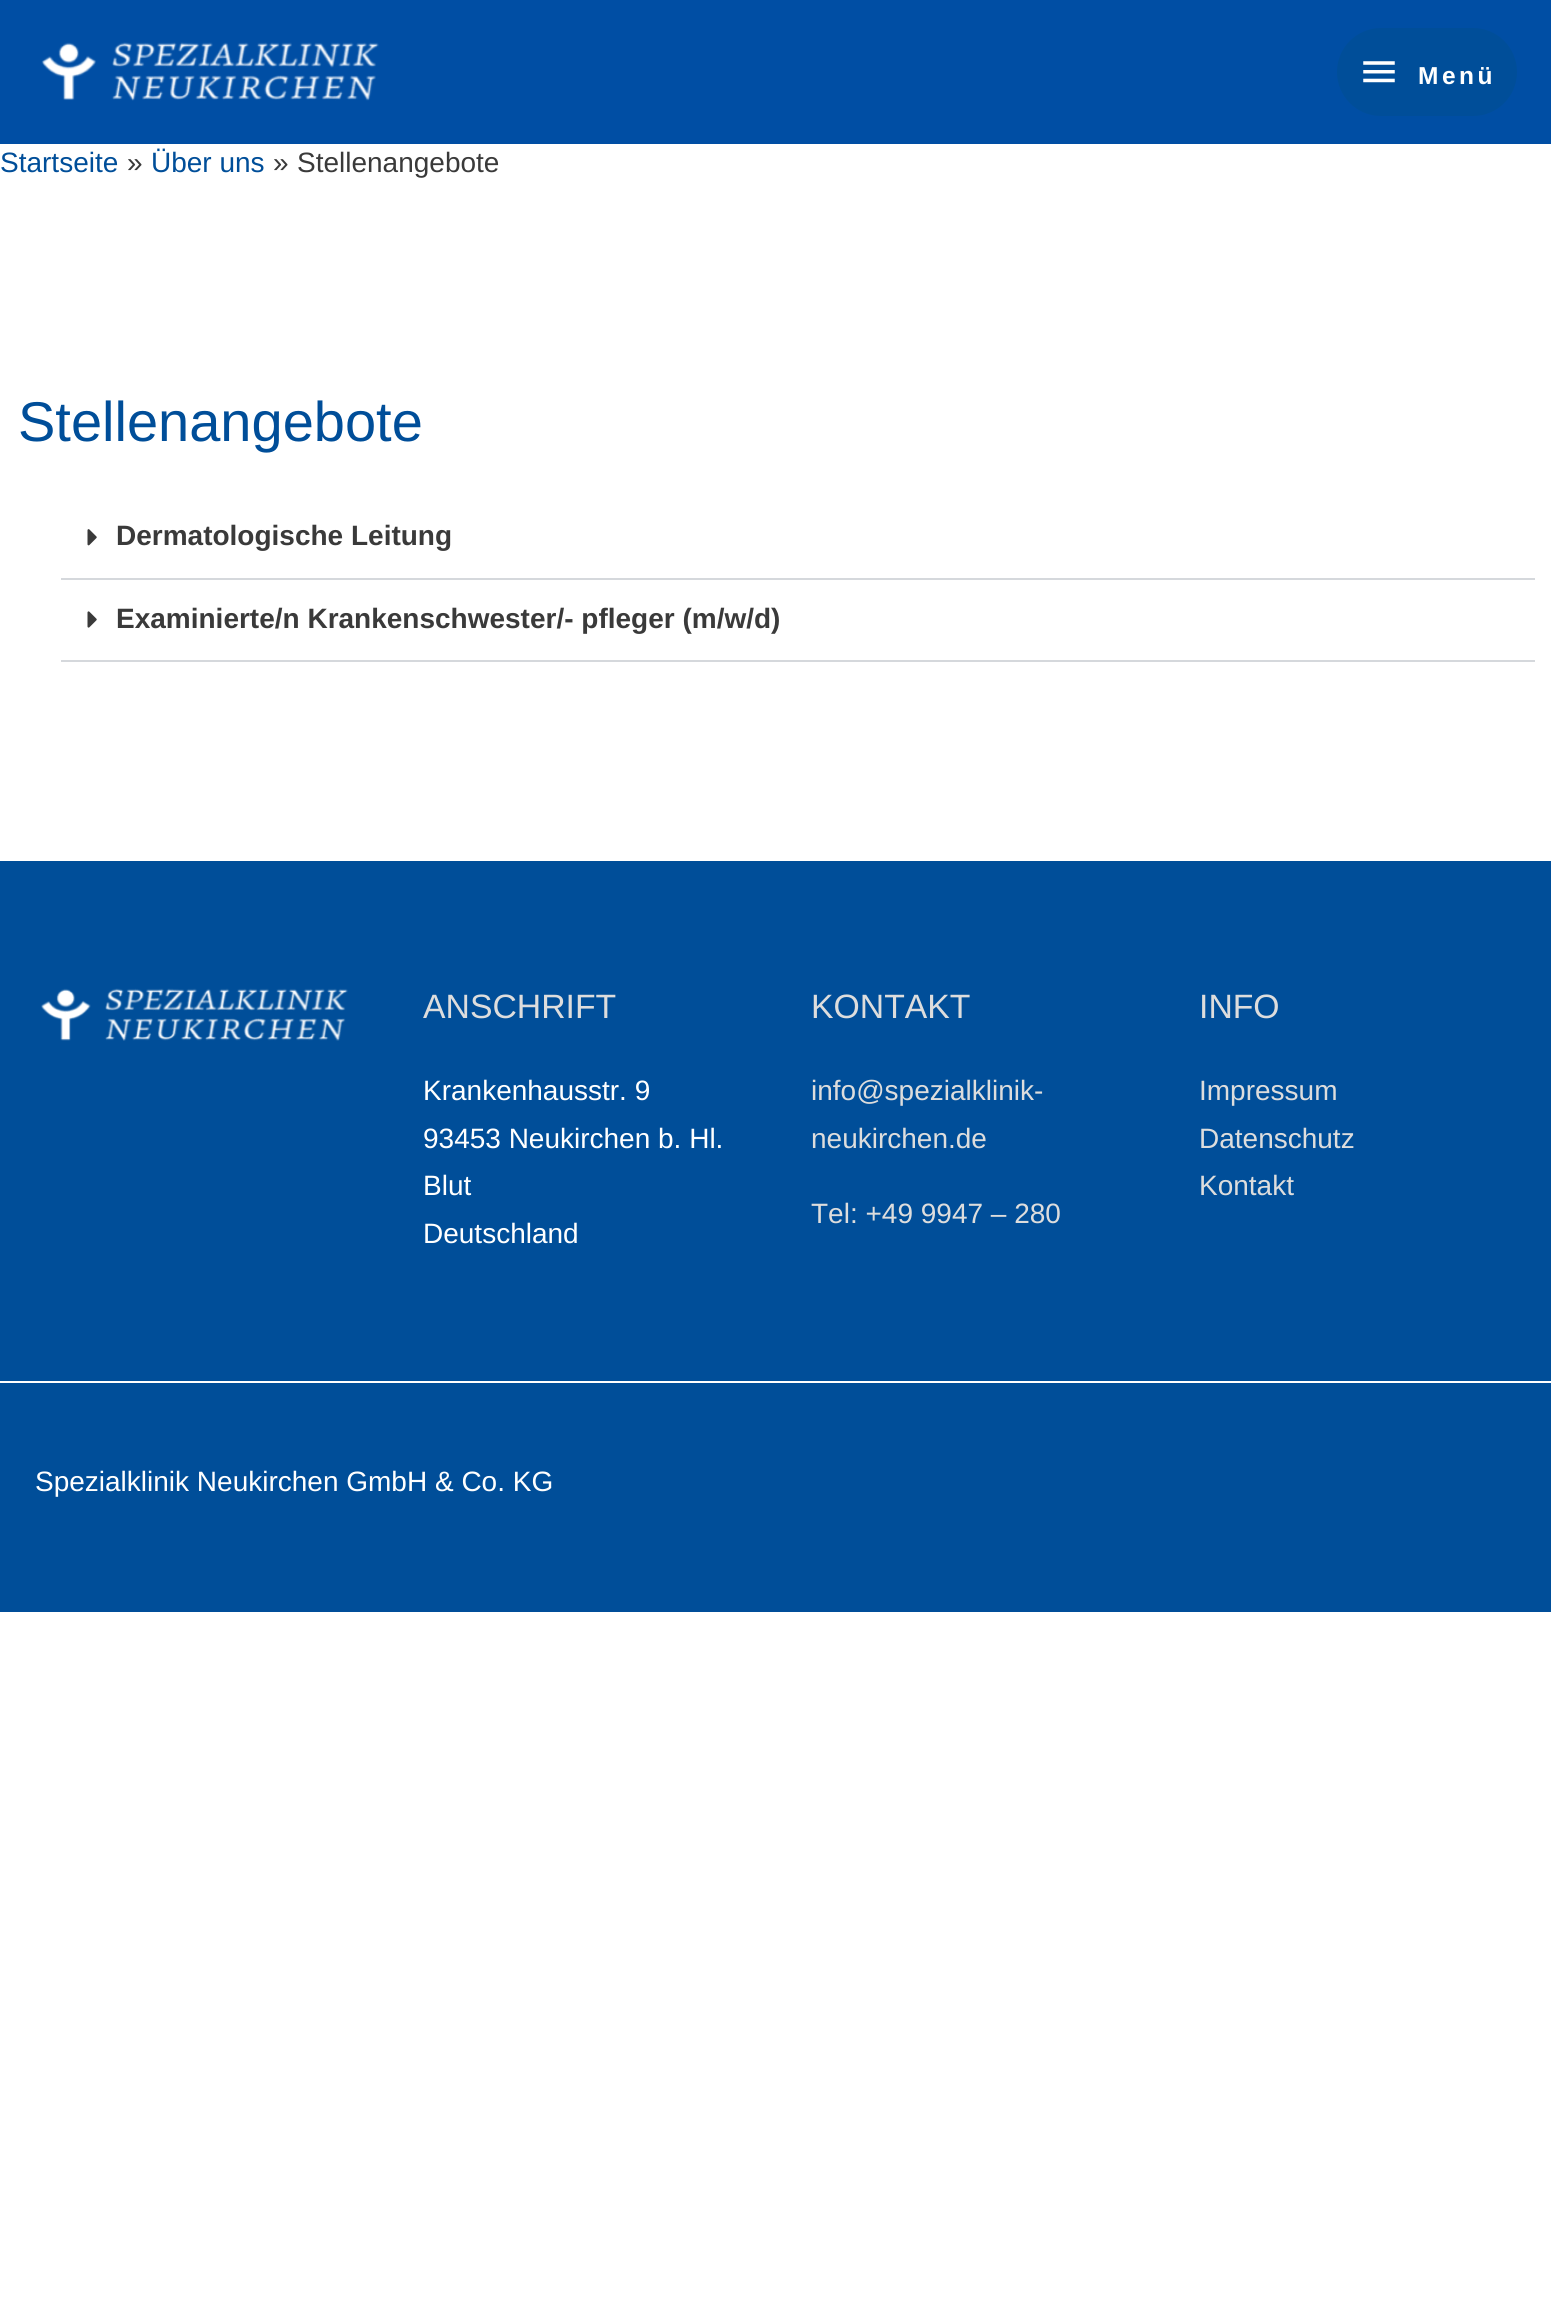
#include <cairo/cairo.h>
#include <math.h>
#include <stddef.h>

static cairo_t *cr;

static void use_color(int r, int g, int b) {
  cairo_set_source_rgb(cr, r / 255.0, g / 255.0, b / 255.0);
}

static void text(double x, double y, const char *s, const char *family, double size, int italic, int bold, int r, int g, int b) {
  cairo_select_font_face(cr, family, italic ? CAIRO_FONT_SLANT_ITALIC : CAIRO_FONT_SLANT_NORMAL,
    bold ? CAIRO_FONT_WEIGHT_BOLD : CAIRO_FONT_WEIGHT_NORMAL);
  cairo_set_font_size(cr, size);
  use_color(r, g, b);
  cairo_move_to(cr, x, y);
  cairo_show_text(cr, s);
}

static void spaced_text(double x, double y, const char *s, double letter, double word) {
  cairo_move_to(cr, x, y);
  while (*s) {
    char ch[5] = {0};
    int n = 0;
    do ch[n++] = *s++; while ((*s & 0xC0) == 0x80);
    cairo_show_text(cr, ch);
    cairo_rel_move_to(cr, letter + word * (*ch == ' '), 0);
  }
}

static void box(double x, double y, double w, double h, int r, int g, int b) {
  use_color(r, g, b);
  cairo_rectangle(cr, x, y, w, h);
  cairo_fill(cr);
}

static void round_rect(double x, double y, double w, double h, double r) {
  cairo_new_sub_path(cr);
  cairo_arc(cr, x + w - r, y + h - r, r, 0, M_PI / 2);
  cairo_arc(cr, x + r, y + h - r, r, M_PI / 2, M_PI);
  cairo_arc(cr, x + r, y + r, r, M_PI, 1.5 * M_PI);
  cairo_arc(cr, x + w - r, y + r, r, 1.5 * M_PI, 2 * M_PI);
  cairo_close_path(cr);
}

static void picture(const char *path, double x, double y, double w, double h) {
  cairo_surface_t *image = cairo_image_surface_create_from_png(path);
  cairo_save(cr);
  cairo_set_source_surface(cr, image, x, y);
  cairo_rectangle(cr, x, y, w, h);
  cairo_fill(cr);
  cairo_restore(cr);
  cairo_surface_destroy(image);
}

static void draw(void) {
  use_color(255, 255, 255);
  cairo_paint(cr);
  box(0, 0, 1551, 144, 0, 78, 164);
  picture("img_01.png", 41, 42, 338, 59);
  use_color(0, 78, 153);
  round_rect(1337, 28, 180, 88, 44);
  cairo_fill(cr);
  picture("img_02.png", 1363, 61, 32, 22);
  box(61, 578, 1474, 2, 213, 216, 220);
  picture("img_03.png", 87, 529, 10, 17);
  box(61, 660, 1474, 2, 213, 216, 220);
  picture("img_04.png", 87, 611, 10, 17);
  box(0, 861, 1551, 520, 0, 78, 153);
  picture("img_05.png", 41, 988, 307, 53);
  box(0, 1383, 1551, 229, 0, 78, 153);
  cairo_select_font_face(cr, "Liberation Sans", CAIRO_FONT_SLANT_NORMAL, CAIRO_FONT_WEIGHT_BOLD);
  cairo_set_font_size(cr, 24.5);
  use_color(255, 255, 255);
  spaced_text(1418, 84, "Menü", 3.5, 0);
  text(0, 172, "Startseite", "Liberation Sans", 28, 0, 0, 0, 78, 153);
  text(127, 172, "»", "Liberation Sans", 28, 0, 0, 58, 58, 58);
  text(151, 172, "Über uns", "Liberation Sans", 28, 0, 0, 0, 78, 153);
  text(273, 172, "»", "Liberation Sans", 28, 0, 0, 58, 58, 58);
  text(297, 172, "Stellenangebote", "Liberation Sans", 28, 0, 0, 58, 58, 58);
  text(18, 441, "Stellenangebote", "Liberation Sans", 56, 0, 0, 0, 78, 153);
  text(116, 545, "Dermatologische Leitung", "Liberation Sans", 28, 0, 1, 58, 58, 58);
  text(116, 628, "Examinierte/n Krankenschwester/- pfleger (m/w/d)", "Liberation Sans", 28, 0, 1, 58, 58, 58);
  text(423, 1018, "ANSCHRIFT", "Liberation Sans", 33.75, 0, 0, 221, 221, 221);
  text(423, 1100, "Krankenhausstr. 9", "Liberation Sans", 28, 0, 0, 255, 255, 255);
  text(423, 1148, "93453 Neukirchen b. Hl.", "Liberation Sans", 28, 0, 0, 255, 255, 255);
  text(423, 1195, "Blut", "Liberation Sans", 28, 0, 0, 255, 255, 255);
  text(423, 1243, "Deutschland", "Liberation Sans", 28, 0, 0, 255, 255, 255);
  text(811, 1018, "KONTAKT", "Liberation Sans", 33.75, 0, 0, 221, 221, 221);
  text(811, 1100, "info@spezialklinik-", "Liberation Sans", 28, 0, 0, 221, 221, 221);
  text(811, 1148, "neukirchen.de", "Liberation Sans", 28, 0, 0, 221, 221, 221);
  text(811, 1223, "Tel: +49 9947 – 280", "Liberation Sans", 28, 0, 0, 221, 221, 221);
  text(1199, 1018, "INFO", "Liberation Sans", 33.75, 0, 0, 221, 221, 221);
  text(1199, 1100, "Impressum", "Liberation Sans", 28, 0, 0, 221, 221, 221);
  text(1199, 1148, "Datenschutz", "Liberation Sans", 28, 0, 0, 221, 221, 221);
  text(1199, 1195, "Kontakt", "Liberation Sans", 28, 0, 0, 221, 221, 221);
  text(35, 1491, "Spezialklinik Neukirchen GmbH & Co. KG", "Liberation Sans", 28, 0, 0, 255, 255, 255);
}

int main(void) {
  cairo_surface_t *surface = cairo_image_surface_create(CAIRO_FORMAT_RGB24, 1551, 2316);
  cr = cairo_create(surface);
  cairo_font_options_t *options = cairo_font_options_create();
  cairo_font_options_set_hint_metrics(options, CAIRO_HINT_METRICS_OFF);
  cairo_font_options_set_hint_style(options, CAIRO_HINT_STYLE_NONE);
  cairo_set_font_options(cr, options);
  cairo_set_miter_limit(cr, 4);
  draw();
  cairo_surface_write_to_png(surface, "out.png");
  cairo_font_options_destroy(options);
  cairo_destroy(cr);
  cairo_surface_destroy(surface);
  return 0;
}
